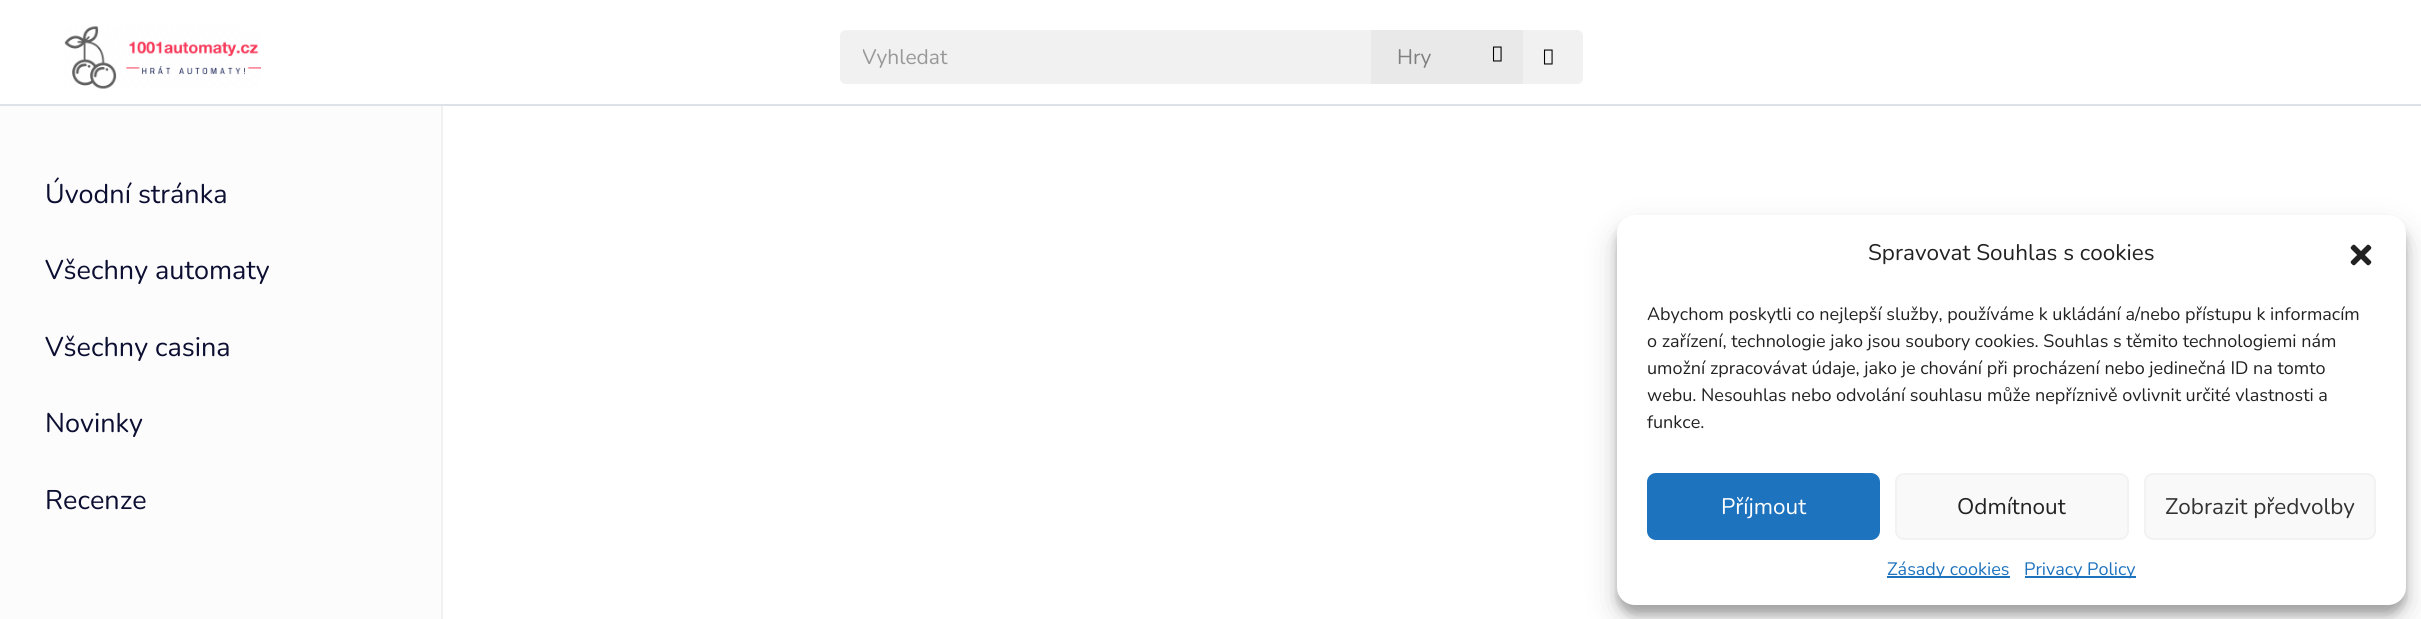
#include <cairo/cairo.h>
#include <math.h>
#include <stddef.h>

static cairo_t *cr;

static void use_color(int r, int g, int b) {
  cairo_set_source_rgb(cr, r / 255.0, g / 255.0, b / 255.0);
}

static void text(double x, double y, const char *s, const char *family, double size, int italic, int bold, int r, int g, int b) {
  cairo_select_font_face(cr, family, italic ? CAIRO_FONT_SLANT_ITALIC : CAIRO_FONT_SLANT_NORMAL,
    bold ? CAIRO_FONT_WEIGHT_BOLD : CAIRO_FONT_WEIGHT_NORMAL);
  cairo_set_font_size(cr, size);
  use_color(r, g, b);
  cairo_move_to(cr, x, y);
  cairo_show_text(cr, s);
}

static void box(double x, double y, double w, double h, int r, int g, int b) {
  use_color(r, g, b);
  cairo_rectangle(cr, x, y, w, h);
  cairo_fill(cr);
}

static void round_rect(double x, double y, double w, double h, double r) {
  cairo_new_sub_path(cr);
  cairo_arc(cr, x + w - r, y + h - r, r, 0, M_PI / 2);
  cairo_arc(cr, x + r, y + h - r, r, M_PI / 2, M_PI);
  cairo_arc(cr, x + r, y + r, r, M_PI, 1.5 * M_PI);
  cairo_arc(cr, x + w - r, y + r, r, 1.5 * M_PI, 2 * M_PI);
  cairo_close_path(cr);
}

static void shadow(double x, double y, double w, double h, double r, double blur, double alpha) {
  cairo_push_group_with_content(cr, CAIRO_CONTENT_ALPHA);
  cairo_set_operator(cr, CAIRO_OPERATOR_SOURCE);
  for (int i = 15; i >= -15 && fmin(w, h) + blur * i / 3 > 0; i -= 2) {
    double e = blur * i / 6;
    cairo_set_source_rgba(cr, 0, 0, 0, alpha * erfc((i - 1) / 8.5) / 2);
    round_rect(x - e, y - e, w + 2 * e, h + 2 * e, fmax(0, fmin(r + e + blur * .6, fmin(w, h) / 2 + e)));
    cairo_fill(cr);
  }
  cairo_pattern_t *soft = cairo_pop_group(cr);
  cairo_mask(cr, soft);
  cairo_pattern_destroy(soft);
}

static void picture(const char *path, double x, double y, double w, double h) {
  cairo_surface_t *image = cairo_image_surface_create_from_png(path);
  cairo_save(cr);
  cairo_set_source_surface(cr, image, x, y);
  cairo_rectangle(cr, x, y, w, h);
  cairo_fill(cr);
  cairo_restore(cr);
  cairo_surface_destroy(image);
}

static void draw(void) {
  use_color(255, 255, 255);
  cairo_paint(cr);
  box(441, 105, 2, 514, 241, 241, 241);
  box(0, 104, 2421, 2, 222, 226, 230);
  picture("img_01.png", 64, 26, 197, 63);
  use_color(241, 241, 241);
  cairo_new_path(cr);
  cairo_move_to(cr, 846, 30);
  cairo_line_to(cr, 1371, 30);
  cairo_line_to(cr, 1371, 84);
  cairo_line_to(cr, 846, 84);
  cairo_curve_to(cr, 842.5, 84, 840, 81.5, 840, 78);
  cairo_line_to(cr, 840, 36);
  cairo_curve_to(cr, 840, 32.5, 842.5, 30, 846, 30);
  cairo_close_path(cr);
  cairo_fill(cr);
  box(1371, 30, 152, 54, 233, 233, 233);
  picture("img_02.png", 1492, 46, 10, 16);
  use_color(241, 241, 241);
  cairo_new_path(cr);
  cairo_move_to(cr, 1523, 30);
  cairo_line_to(cr, 1577, 30);
  cairo_curve_to(cr, 1580.5, 30, 1583, 32.5, 1583, 36);
  cairo_line_to(cr, 1583, 78);
  cairo_curve_to(cr, 1583, 81.5, 1580.5, 84, 1577, 84);
  cairo_line_to(cr, 1523, 84);
  cairo_close_path(cr);
  cairo_fill(cr);
  picture("img_03.png", 1543, 49, 10, 16);
  box(0, 106, 441, 513, 252, 252, 252);
  use_color(0, 0, 0);
  shadow(1617, 224, 789, 390, 18, 4.5, 0.23);
  shadow(1617, 230, 789, 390, 18, 15, 0.19);
  use_color(255, 255, 255);
  round_rect(1617, 215, 789, 390, 18);
  cairo_fill(cr);
  picture("img_04.png", 2350, 244, 22, 22);
  use_color(30, 115, 190);
  round_rect(1648, 474, 231, 65, 8);
  cairo_fill_preserve(cr);
  cairo_stroke(cr);
  use_color(249, 249, 249);
  round_rect(1896, 474, 232, 65, 8);
  cairo_fill_preserve(cr);
  use_color(242, 242, 242);
  cairo_stroke(cr);
  use_color(249, 249, 249);
  round_rect(2145, 474, 230, 65, 8);
  cairo_fill_preserve(cr);
  use_color(242, 242, 242);
  cairo_stroke(cr);
  box(1887, 576, 123, 2, 30, 115, 190);
  box(2025, 576, 111, 2, 30, 115, 190);
  cairo_save(cr);
  cairo_rectangle(cr, 863, 44, 487, 28);
  cairo_clip(cr);
  text(862, 64, "Vyhledat", "Nunito", 21, 0, 0, 153, 153, 153);
  cairo_restore(cr);
  text(1397, 64, "Hry", "Nunito", 21, 0, 0, 128, 128, 128);
  text(45, 203, "Úvodní stránka", "Nunito", 27, 0, 0, 13, 15, 50);
  text(45, 279, "Všechny automaty", "Nunito", 27, 0, 0, 13, 15, 50);
  text(45, 356, "Všechny casina", "Nunito", 27, 0, 0, 13, 15, 50);
  text(45, 432, "Novinky", "Nunito", 27, 0, 0, 13, 15, 50);
  text(45, 509, "Recenze", "Nunito", 27, 0, 0, 13, 15, 50);
  text(1868, 260, "Spravovat Souhlas s cookies", "Nunito", 22.5, 0, 0, 34, 34, 34);
  text(1647, 320, "Abychom poskytli co nejlepší služby, používáme k ukládání a/nebo přístupu k informacím", "Nunito", 18, 0, 0, 34, 34, 34);
  text(1647, 347, "o zařízení, technologie jako jsou soubory cookies. Souhlas s těmito technologiemi nám", "Nunito", 18, 0, 0, 34, 34, 34);
  text(1647, 374, "umožní zpracovávat údaje, jako je chování při procházení nebo jedinečná ID na tomto", "Nunito", 18, 0, 0, 34, 34, 34);
  text(1647, 401, "webu. Nesouhlas nebo odvolání souhlasu může nepříznivě ovlivnit určité vlastnosti a", "Nunito", 18, 0, 0, 34, 34, 34);
  text(1647, 428, "funkce.", "Nunito", 18, 0, 0, 34, 34, 34);
  text(1721, 514, "Příjmout", "Nunito", 22.5, 0, 0, 255, 255, 255);
  text(1957, 514, "Odmítnout", "Nunito", 22.5, 0, 0, 34, 34, 34);
  text(2165, 514, "Zobrazit předvolby", "Nunito", 22.5, 0, 0, 51, 51, 51);
  text(1887, 575, "Zásady cookies", "Nunito", 18, 0, 0, 30, 115, 190);
  text(2024, 575, "Privacy Policy", "Nunito", 18, 0, 0, 30, 115, 190);
}

int main(void) {
  cairo_surface_t *surface = cairo_image_surface_create(CAIRO_FORMAT_RGB24, 2421, 619);
  cr = cairo_create(surface);
  cairo_font_options_t *options = cairo_font_options_create();
  cairo_font_options_set_hint_metrics(options, CAIRO_HINT_METRICS_OFF);
  cairo_font_options_set_hint_style(options, CAIRO_HINT_STYLE_NONE);
  cairo_set_font_options(cr, options);
  cairo_set_miter_limit(cr, 4);
  draw();
  cairo_surface_write_to_png(surface, "out.png");
  cairo_font_options_destroy(options);
  cairo_destroy(cr);
  cairo_surface_destroy(surface);
  return 0;
}
